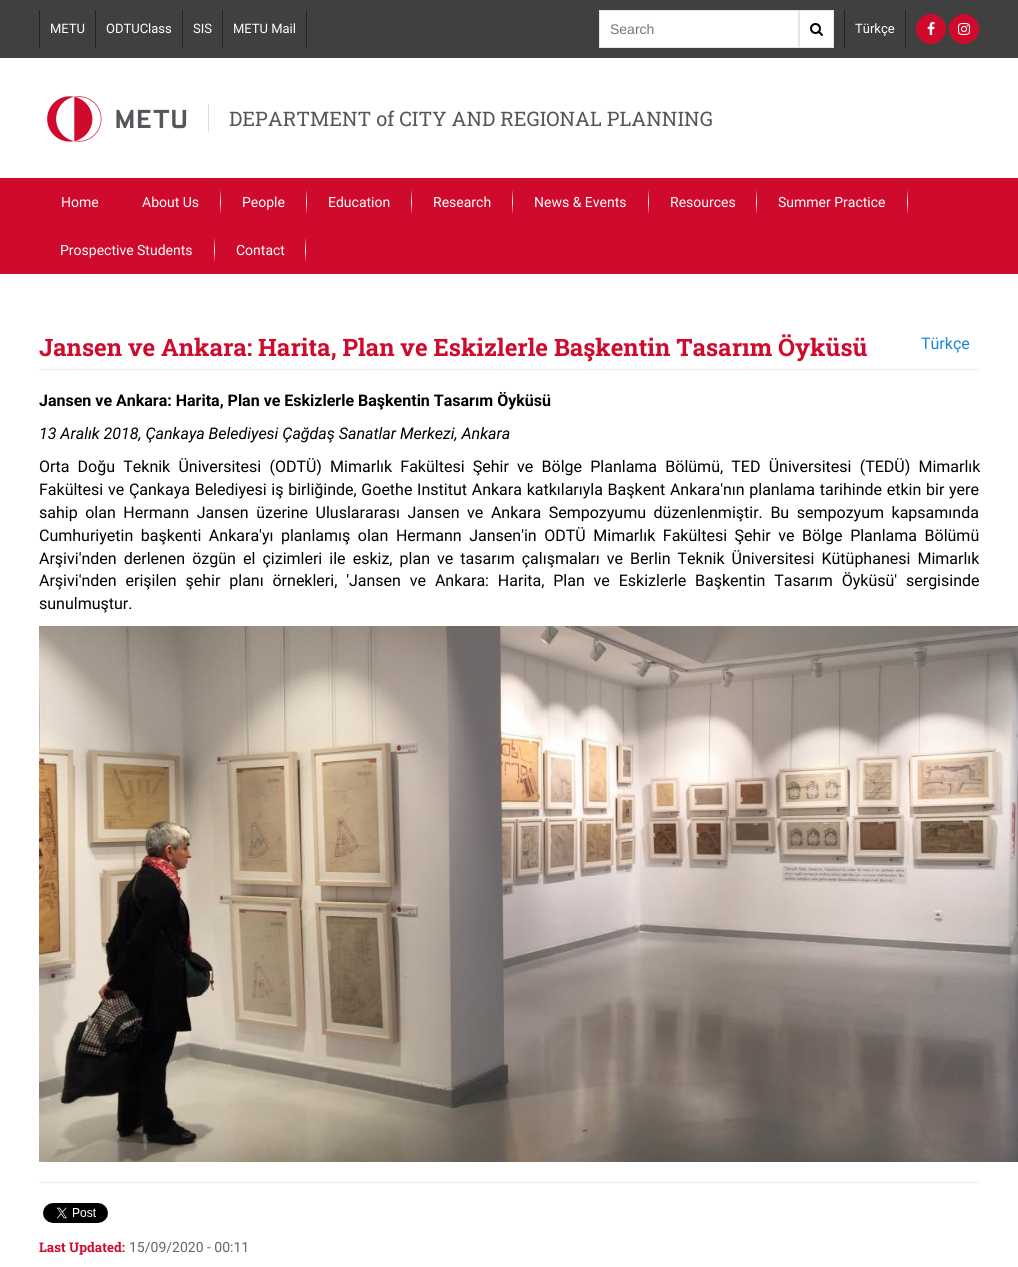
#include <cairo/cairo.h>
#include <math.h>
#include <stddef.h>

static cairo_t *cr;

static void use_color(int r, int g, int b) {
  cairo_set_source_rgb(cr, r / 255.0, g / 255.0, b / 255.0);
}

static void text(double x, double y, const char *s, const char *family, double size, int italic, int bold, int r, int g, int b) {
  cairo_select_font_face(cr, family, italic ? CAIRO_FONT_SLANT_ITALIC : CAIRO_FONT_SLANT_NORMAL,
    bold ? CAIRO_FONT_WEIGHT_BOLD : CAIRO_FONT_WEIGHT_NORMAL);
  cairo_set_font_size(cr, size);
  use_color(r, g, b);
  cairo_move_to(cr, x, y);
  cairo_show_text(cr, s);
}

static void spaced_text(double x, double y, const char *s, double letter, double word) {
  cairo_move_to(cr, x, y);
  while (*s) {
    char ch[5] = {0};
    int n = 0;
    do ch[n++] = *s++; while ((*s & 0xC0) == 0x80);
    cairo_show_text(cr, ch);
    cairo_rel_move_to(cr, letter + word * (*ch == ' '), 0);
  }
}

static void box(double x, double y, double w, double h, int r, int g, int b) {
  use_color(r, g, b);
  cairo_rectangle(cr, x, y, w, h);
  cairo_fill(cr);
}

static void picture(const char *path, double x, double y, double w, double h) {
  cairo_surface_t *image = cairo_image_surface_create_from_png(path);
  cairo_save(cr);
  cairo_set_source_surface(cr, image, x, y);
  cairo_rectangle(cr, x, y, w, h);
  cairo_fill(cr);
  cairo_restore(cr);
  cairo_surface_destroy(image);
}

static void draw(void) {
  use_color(255, 255, 255);
  cairo_paint(cr);
  box(0, 0, 1018, 58, 64, 64, 65);
  box(95, 10, 1, 38, 37, 37, 37);
  box(39, 10, 1, 38, 37, 37, 37);
  box(182, 10, 1, 38, 37, 37, 37);
  box(222, 10, 1, 38, 37, 37, 37);
  box(306, 10, 1, 38, 37, 37, 37);
  use_color(255, 255, 255);
  cairo_rectangle(cr, 599.5, 10.5, 199, 37);
  cairo_fill_preserve(cr);
  use_color(230, 230, 230);
  cairo_set_line_width(cr, 1);
  cairo_stroke(cr);
  use_color(255, 255, 255);
  cairo_rectangle(cr, 799.5, 10.5, 34, 37);
  cairo_fill_preserve(cr);
  use_color(230, 230, 230);
  cairo_stroke(cr);
  picture("img_01.png", 810, 23, 13, 13);
  box(905, 10, 1, 38, 37, 37, 37);
  box(844, 10, 1, 38, 37, 37, 37);
  use_color(207, 10, 44);
  cairo_arc(cr, 931, 29, 15, 0, 2 * M_PI);
  cairo_fill(cr);
  picture("img_02.png", 927, 22, 8, 13);
  cairo_arc(cr, 964, 29, 15, 0, 2 * M_PI);
  cairo_fill(cr);
  picture("img_03.png", 958, 23, 12, 12);
  picture("img_04.png", 47, 96, 140, 46);
  box(208, 104, 1, 28, 221, 221, 221);
  box(0, 178, 1018, 96, 207, 10, 44);
  picture("img_05.png", 220, 190, 1, 24);
  picture("img_05.png", 306, 190, 1, 24);
  picture("img_06.png", 411, 190, 1, 24);
  picture("img_05.png", 512, 190, 1, 24);
  picture("img_05.png", 648, 190, 1, 24);
  picture("img_05.png", 756, 190, 1, 24);
  picture("img_07.png", 907, 190, 1, 24);
  picture("img_05.png", 214, 238, 1, 24);
  picture("img_08.png", 305, 238, 1, 24);
  box(39, 369, 940, 1, 238, 238, 238);
  picture("img_09.png", 39, 626, 979, 536);
  box(39, 1182, 940, 1, 238, 238, 238);
  picture("img_10.png", 43, 1203, 65, 20);
  text(50, 33, "METU", "Roboto", 13, 0, 0, 255, 255, 255);
  text(106, 33, "ODTUClass", "Roboto", 13, 0, 0, 255, 255, 255);
  text(193, 33, "SIS", "Roboto", 13, 0, 0, 255, 255, 255);
  text(233, 33, "METU Mail", "Roboto", 13, 0, 0, 255, 255, 255);
  text(610, 34, "Search", "Liberation Sans", 14, 0, 0, 117, 117, 117);
  text(855, 33, "Türkçe", "Roboto", 13, 0, 0, 255, 255, 255);
  text(229, 126, "DEPARTMENT of CITY AND REGIONAL PLANNING", "Roboto Slab", 20, 0, 0, 85, 86, 90);
  text(61, 207, "Home", "Roboto", 14, 0, 0, 255, 255, 255);
  text(142, 207, "About Us", "Roboto", 14, 0, 0, 255, 255, 255);
  text(242, 207, "People", "Roboto", 14, 0, 0, 255, 255, 255);
  text(328, 207, "Education", "Roboto", 14, 0, 0, 255, 255, 255);
  text(433, 207, "Research", "Roboto", 14, 0, 0, 255, 255, 255);
  text(534, 207, "News & Events", "Roboto", 14, 0, 0, 255, 255, 255);
  text(670, 207, "Resources", "Roboto", 14, 0, 0, 255, 255, 255);
  text(778, 207, "Summer Practice", "Roboto", 14, 0, 0, 255, 255, 255);
  text(60, 255, "Prospective Students", "Roboto", 14, 0, 0, 255, 255, 255);
  text(236, 255, "Contact", "Roboto", 14, 0, 0, 255, 255, 255);
  text(39, 356, "Jansen ve Ankara: Harita, Plan ve Eskizlerle Başkentin Tasarım Öyküsü", "Roboto Slab", 24, 0, 1, 207, 10, 44);
  text(921, 349, "Türkçe", "Roboto", 16, 0, 0, 30, 133, 226);
  text(39, 406, "Jansen ve Ankara: Harita, Plan ve Eskizlerle Başkentin Tasarım Öyküsü", "Roboto", 16, 0, 1, 0, 0, 0);
  text(39, 439, "13 Aralık 2018, Çankaya Belediyesi Çağdaş Sanatlar Merkezi, Ankara", "Roboto", 16, 1, 0, 0, 0, 0);
  cairo_select_font_face(cr, "Roboto", CAIRO_FONT_SLANT_NORMAL, CAIRO_FONT_WEIGHT_NORMAL);
  spaced_text(39, 472, "Orta Doğu Teknik Üniversitesi (ODTÜ) Mimarlık Fakültesi Şehir ve Bölge Planlama Bölümü, TED Üniversitesi (TEDÜ) Mimarlık", 0, 4.25);
  spaced_text(39, 495, "Fakültesi ve Çankaya Belediyesi iş birliğinde, Goethe Institut Ankara katkılarıyla Başkent Ankara'nın planlama tarihinde etkin bir yere", 0, 0.75);
  spaced_text(39, 518, "sahip olan Hermann Jansen üzerine Uluslararası Jansen ve Ankara Sempozyumu düzenlenmiştir. Bu sempozyum kapsamında", 0, 3.6);
  spaced_text(39, 541, "Cumhuriyetin başkenti Ankara'yı planlamış olan Hermann Jansen'in ODTÜ Mimarlık Fakültesi Şehir ve Bölge Planlama Bölümü", 0, 3.6);
  spaced_text(39, 564, "Arşivi'nden derlenen özgün el çizimleri ile eskiz, plan ve tasarım çalışmaları ve Berlin Teknik Üniversitesi Kütüphanesi Mimarlık", 0, 3.1);
  spaced_text(39, 586, "Arşivi'nden erişilen şehir planı örnekleri, 'Jansen ve Ankara: Harita, Plan ve Eskizlerle Başkentin Tasarım Öyküsü' sergisinde", 0, 4.9);
  text(39, 609, "sunulmuştur.", "Roboto", 16, 0, 0, 0, 0, 0);
  text(39, 1252, "Last Updated:", "Roboto Slab", 13.25, 0, 1, 207, 10, 44);
  text(129, 1252, "15/09/2020 - 00:11", "Roboto", 14, 0, 0, 102, 102, 102);
}

int main(void) {
  cairo_surface_t *surface = cairo_image_surface_create(CAIRO_FORMAT_RGB24, 1018, 1267);
  cr = cairo_create(surface);
  cairo_font_options_t *options = cairo_font_options_create();
  cairo_font_options_set_hint_metrics(options, CAIRO_HINT_METRICS_OFF);
  cairo_font_options_set_hint_style(options, CAIRO_HINT_STYLE_NONE);
  cairo_set_font_options(cr, options);
  cairo_set_miter_limit(cr, 4);
  draw();
  cairo_surface_write_to_png(surface, "out.png");
  cairo_font_options_destroy(options);
  cairo_destroy(cr);
  cairo_surface_destroy(surface);
  return 0;
}
